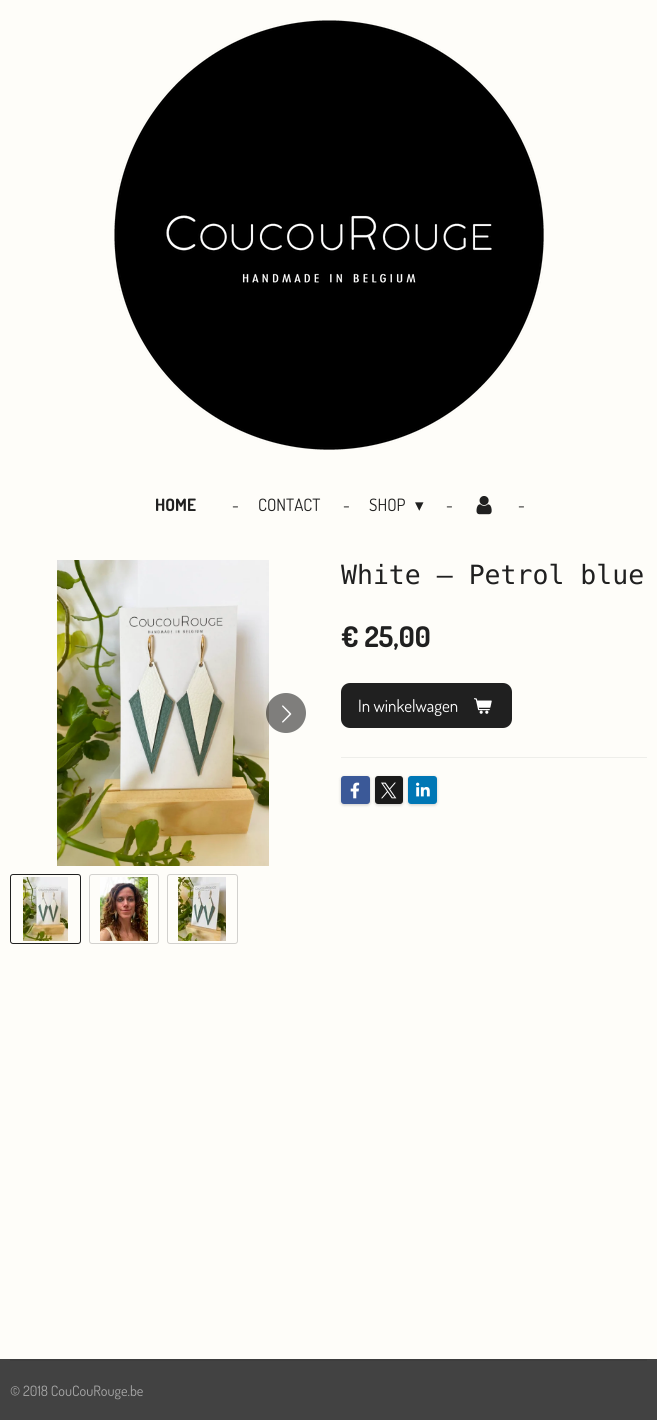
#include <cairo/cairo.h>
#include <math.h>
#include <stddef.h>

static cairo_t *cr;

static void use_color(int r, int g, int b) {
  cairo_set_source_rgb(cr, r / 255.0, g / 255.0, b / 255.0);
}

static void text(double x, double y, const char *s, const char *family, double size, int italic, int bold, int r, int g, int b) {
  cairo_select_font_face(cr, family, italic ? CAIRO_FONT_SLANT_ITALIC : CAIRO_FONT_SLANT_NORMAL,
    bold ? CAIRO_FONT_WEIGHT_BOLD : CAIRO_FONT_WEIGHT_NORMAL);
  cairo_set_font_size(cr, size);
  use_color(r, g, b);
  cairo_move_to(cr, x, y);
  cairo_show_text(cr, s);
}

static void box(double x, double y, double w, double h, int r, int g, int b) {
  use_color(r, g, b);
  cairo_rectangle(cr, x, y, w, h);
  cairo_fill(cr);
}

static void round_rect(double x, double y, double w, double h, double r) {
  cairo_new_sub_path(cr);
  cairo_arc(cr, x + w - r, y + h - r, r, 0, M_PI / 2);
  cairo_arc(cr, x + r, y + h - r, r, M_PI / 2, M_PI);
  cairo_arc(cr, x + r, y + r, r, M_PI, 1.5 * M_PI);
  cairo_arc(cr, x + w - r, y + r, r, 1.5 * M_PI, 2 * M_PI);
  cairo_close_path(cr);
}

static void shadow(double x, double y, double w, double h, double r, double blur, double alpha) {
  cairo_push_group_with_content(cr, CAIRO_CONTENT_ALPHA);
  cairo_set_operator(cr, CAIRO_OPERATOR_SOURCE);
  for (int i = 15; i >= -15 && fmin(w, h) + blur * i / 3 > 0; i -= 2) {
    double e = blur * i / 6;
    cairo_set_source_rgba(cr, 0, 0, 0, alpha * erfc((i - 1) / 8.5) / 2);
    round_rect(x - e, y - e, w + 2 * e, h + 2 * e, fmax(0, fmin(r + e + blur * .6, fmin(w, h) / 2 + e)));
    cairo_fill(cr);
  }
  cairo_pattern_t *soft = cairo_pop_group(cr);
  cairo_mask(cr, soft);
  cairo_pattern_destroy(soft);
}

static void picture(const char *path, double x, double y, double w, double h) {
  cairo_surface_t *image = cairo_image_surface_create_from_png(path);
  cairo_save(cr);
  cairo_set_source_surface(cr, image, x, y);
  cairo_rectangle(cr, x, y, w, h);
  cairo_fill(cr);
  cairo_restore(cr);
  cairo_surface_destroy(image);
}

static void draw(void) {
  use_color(254, 253, 249);
  cairo_paint(cr);
  picture("img_01.png", 114, 20, 430, 430);
  picture("img_02.png", 476, 496, 16, 19);
  picture("img_03.png", 57, 560, 212, 306);
  cairo_set_source_rgba(cr, 0, 0, 0, 0.5);
  cairo_arc(cr, 286, 713, 20, 0, 2 * M_PI);
  cairo_fill(cr);
  picture("img_04.png", 282, 705, 10, 18);
  round_rect(10.5, 874.5, 70, 69, 2.5);
  use_color(32, 32, 32);
  cairo_set_line_width(cr, 1);
  cairo_stroke(cr);
  picture("img_05.png", 23, 877, 45, 64);
  round_rect(89.5, 874.5, 69, 69, 2.5);
  use_color(210, 209, 206);
  cairo_stroke(cr);
  picture("img_06.png", 100, 877, 48, 64);
  round_rect(167.5, 874.5, 70, 69, 2.5);
  cairo_stroke(cr);
  picture("img_07.png", 178, 877, 48, 64);
  use_color(32, 32, 32);
  round_rect(341, 683, 171, 45, 9);
  cairo_fill(cr);
  picture("img_08.png", 474, 698, 18, 16);
  box(341, 757, 306, 1, 238, 238, 234);
  use_color(0, 0, 0);
  shadow(341, 777, 29, 28, 3, 1.5, 0.2);
  use_color(59, 89, 152);
  round_rect(341, 776, 29, 28, 3);
  cairo_fill(cr);
  picture("img_09.png", 350, 782, 10, 17);
  use_color(0, 0, 0);
  shadow(375, 777, 28, 28, 3, 1.5, 0.2);
  use_color(26, 26, 26);
  round_rect(375, 776, 28, 28, 3);
  cairo_fill(cr);
  picture("img_10.png", 381, 782, 16, 17);
  use_color(0, 0, 0);
  shadow(408, 777, 29, 28, 3, 1.5, 0.2);
  use_color(0, 119, 181);
  round_rect(408, 776, 29, 28, 3);
  cairo_fill(cr);
  picture("img_11.png", 416, 782, 14, 15);
  box(0, 1359, 657, 61, 66, 66, 66);
  box(10, 1359, 637, 2, 61, 61, 61);
  text(155, 511, "HOME", "Dosis", 17, 0, 1, 32, 32, 32);
  text(232, 511, "-", "Dosis", 17, 0, 0, 32, 32, 32);
  text(258, 511, "CONTACT", "Dosis", 17, 0, 0, 32, 32, 32);
  text(343, 511, "-", "Dosis", 17, 0, 0, 32, 32, 32);
  text(369, 511, "SHOP", "Dosis", 17, 0, 0, 32, 32, 32);
  text(415, 511, "▾", "DejaVu Sans", 17, 0, 0, 32, 32, 32);
  text(446, 511, "-", "Dosis", 17, 0, 0, 32, 32, 32);
  text(518, 511, "-", "Dosis", 17, 0, 0, 32, 32, 32);
  text(341, 584, "White – Petrol blue", "DejaVu Sans Mono", 26.5, 0, 0, 32, 32, 32);
  text(341, 647, "€ 25,00", "Dosis", 28.5, 0, 1, 32, 32, 32);
  text(358, 712, "In winkelwagen", "Dosis", 17, 0, 0, 255, 255, 255);
  text(10, 1396, "© 2018 CouCouRouge.be", "Dosis", 14.25, 0, 0, 168, 168, 168);
}

int main(void) {
  cairo_surface_t *surface = cairo_image_surface_create(CAIRO_FORMAT_RGB24, 657, 1420);
  cr = cairo_create(surface);
  cairo_font_options_t *options = cairo_font_options_create();
  cairo_font_options_set_hint_metrics(options, CAIRO_HINT_METRICS_OFF);
  cairo_font_options_set_hint_style(options, CAIRO_HINT_STYLE_NONE);
  cairo_set_font_options(cr, options);
  cairo_set_miter_limit(cr, 4);
  draw();
  cairo_surface_write_to_png(surface, "out.png");
  cairo_font_options_destroy(options);
  cairo_destroy(cr);
  cairo_surface_destroy(surface);
  return 0;
}
